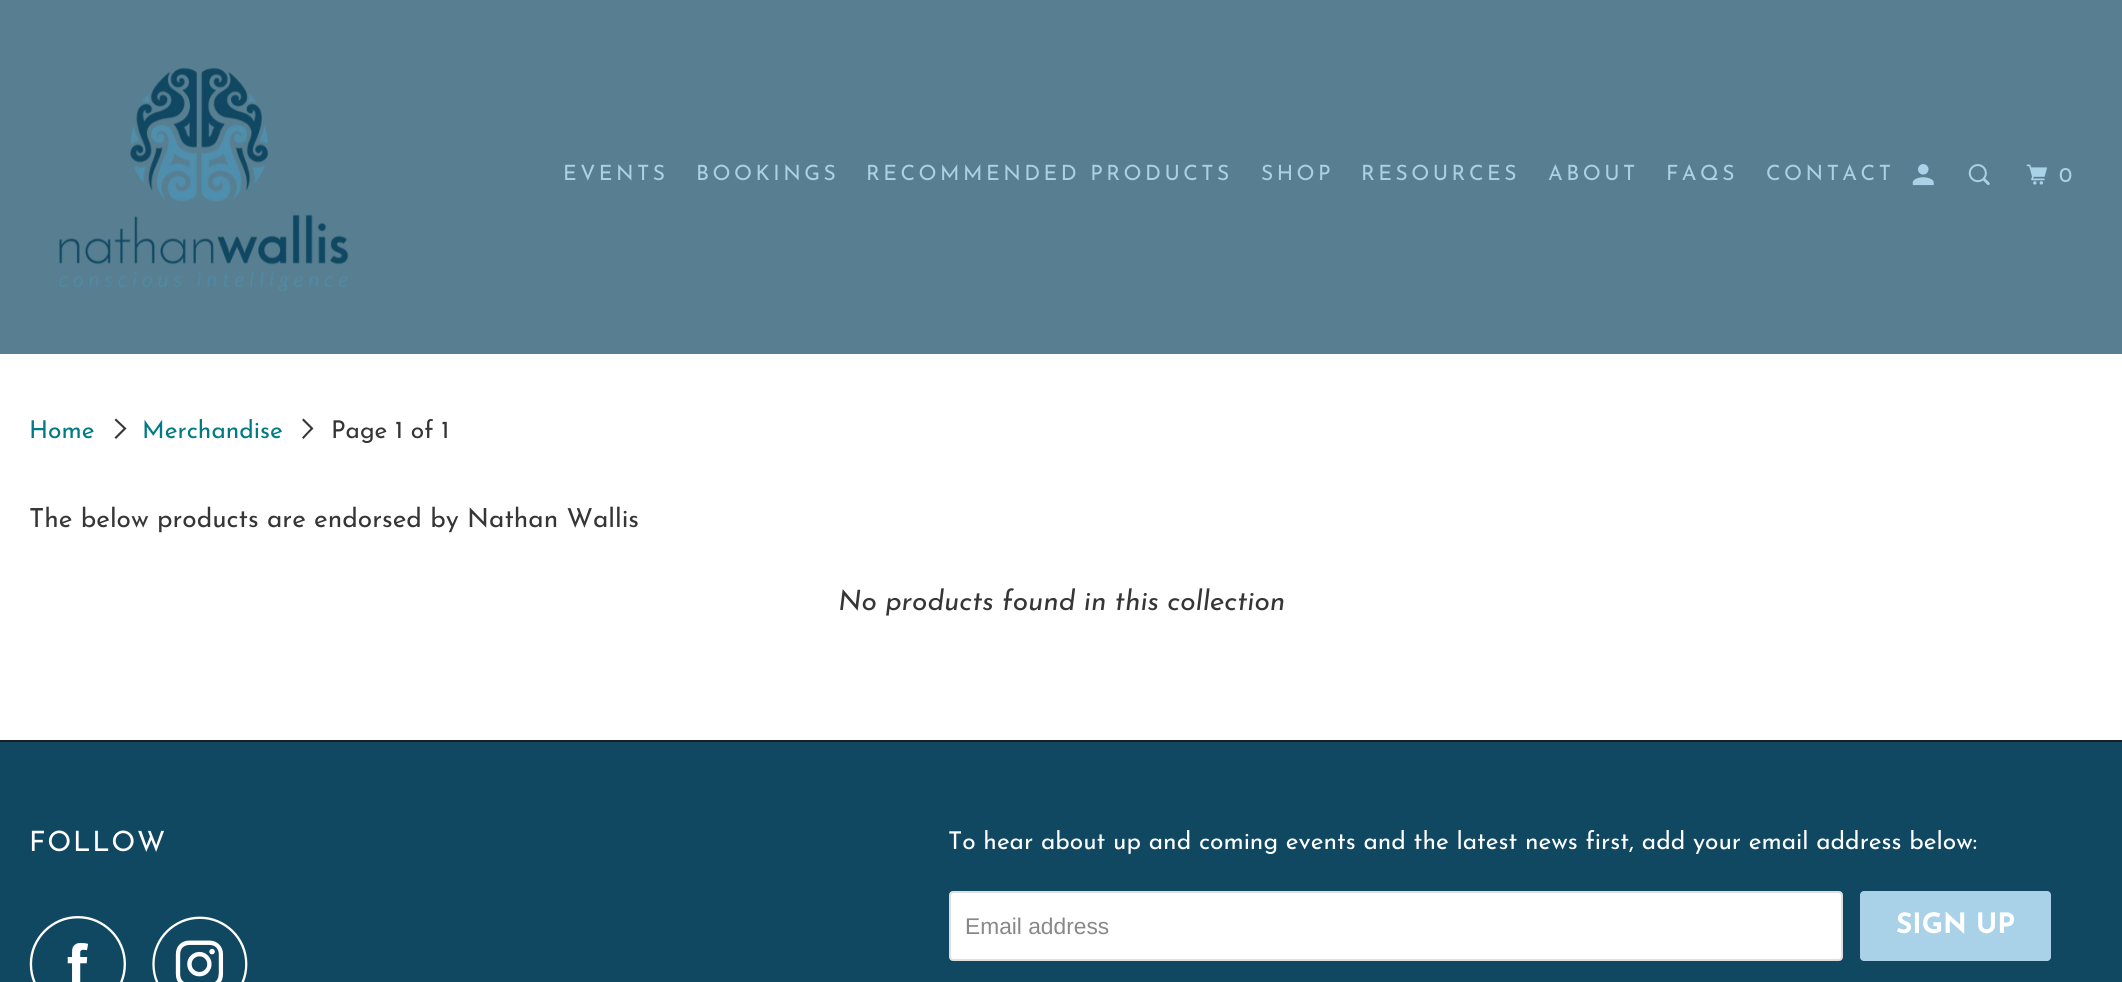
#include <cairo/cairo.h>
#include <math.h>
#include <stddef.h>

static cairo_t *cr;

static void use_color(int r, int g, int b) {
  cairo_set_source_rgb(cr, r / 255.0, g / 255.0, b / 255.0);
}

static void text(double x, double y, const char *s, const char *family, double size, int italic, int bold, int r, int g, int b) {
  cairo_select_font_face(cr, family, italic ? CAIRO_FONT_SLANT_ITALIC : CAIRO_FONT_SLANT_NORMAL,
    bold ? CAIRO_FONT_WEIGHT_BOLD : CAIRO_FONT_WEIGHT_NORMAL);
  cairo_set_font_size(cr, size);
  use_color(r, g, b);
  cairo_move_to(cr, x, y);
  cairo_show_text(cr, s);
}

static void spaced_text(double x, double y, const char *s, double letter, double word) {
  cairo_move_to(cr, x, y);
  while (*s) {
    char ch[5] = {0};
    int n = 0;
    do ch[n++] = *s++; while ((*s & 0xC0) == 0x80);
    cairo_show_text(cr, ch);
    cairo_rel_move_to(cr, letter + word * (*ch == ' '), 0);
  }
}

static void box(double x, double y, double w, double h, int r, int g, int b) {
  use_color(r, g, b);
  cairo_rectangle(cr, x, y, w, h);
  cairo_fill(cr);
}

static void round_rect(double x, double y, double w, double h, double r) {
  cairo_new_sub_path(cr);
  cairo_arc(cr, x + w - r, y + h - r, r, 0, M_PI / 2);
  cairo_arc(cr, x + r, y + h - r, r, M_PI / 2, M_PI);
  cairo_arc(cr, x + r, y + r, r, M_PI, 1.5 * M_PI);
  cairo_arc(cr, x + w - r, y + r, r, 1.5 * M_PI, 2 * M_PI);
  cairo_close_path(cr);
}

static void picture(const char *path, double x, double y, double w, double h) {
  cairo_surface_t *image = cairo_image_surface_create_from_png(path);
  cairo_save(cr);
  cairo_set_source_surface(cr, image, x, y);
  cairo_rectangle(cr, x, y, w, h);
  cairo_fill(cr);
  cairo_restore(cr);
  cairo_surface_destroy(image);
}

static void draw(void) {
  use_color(255, 255, 255);
  cairo_paint(cr);
  box(0, 0, 2122, 354, 88, 127, 145);
  picture("img_01.png", 59, 67, 290, 224);
  picture("img_02.png", 1912, 164, 22, 22);
  picture("img_03.png", 1968, 164, 22, 21);
  picture("img_04.png", 2026, 164, 21, 21);
  use_color(54, 54, 54);
  cairo_new_path(cr);
  cairo_move_to(cr, 121.5, 433.5);
  cairo_line_to(cr, 116, 439);
  cairo_line_to(cr, 114.5, 437.5);
  cairo_line_to(cr, 123.5, 428.5);
  cairo_line_to(cr, 114.5, 420);
  cairo_line_to(cr, 116, 418.5);
  cairo_line_to(cr, 126.5, 428.5);
  cairo_close_path(cr);
  cairo_fill(cr);
  cairo_new_path(cr);
  cairo_move_to(cr, 308.5, 433.5);
  cairo_line_to(cr, 303.5, 439);
  cairo_line_to(cr, 302, 437.5);
  cairo_line_to(cr, 310.5, 428.5);
  cairo_line_to(cr, 302, 420);
  cairo_line_to(cr, 303.5, 418.5);
  cairo_line_to(cr, 313.5, 428.5);
  cairo_close_path(cr);
  cairo_fill(cr);
  box(0, 742, 2122, 240, 16, 72, 98);
  box(0, 740, 2122, 2, 27, 31, 35);
  picture("img_05.png", 29, 916, 97, 66);
  picture("img_06.png", 152, 916, 96, 66);
  use_color(255, 255, 255);
  round_rect(950, 892, 892, 68, 3);
  cairo_fill_preserve(cr);
  use_color(223, 223, 223);
  cairo_stroke(cr);
  use_color(169, 210, 232);
  round_rect(1860, 891, 191, 70, 4);
  cairo_fill(cr);
  cairo_select_font_face(cr, "Josefin Sans", CAIRO_FONT_SLANT_NORMAL, CAIRO_FONT_WEIGHT_NORMAL);
  cairo_set_font_size(cr, 21);
  spaced_text(563, 180, "EVENTS", 3.5, 0);
  spaced_text(696, 180, "BOOKINGS", 3.5, 0);
  spaced_text(866, 180, "RECOMMENDED PRODUCTS", 3.5, 0);
  spaced_text(1261, 180, "SHOP", 3.5, 0);
  spaced_text(1361, 180, "RESOURCES", 3.5, 0);
  spaced_text(1548, 180, "ABOUT", 3.5, 0);
  spaced_text(1666, 180, "FAQS", 3.5, 0);
  spaced_text(1766, 180, "CONTACT", 3.5, 0);
  spaced_text(2059, 182, "0", 3.5, 0);
  text(29, 438, "Home", "Josefin Sans", 24.5, 0, 0, 0, 122, 135);
  text(142, 438, "Merchandise", "Josefin Sans", 24.5, 0, 0, 0, 122, 135);
  text(331, 438, "Page 1 of 1", "Josefin Sans", 24.5, 0, 0, 54, 54, 54);
  text(29, 527, "The below products are endorsed by Nathan Wallis", "Josefin Sans", 26.25, 0, 0, 54, 54, 54);
  text(838, 610, "No products found in this collection", "Josefin Sans", 28, 1, 0, 54, 54, 54);
  cairo_select_font_face(cr, "Josefin Sans", CAIRO_FONT_SLANT_NORMAL, CAIRO_FONT_WEIGHT_NORMAL);
  use_color(255, 255, 255);
  spaced_text(29, 851, "FOLLOW", 1.75, 0);
  text(948, 849, "To hear about up and coming events and the latest news first, add your email address below:", "Josefin Sans", 24.5, 0, 0, 255, 255, 255);
  text(965, 934, "Email address", "Liberation Sans", 22.75, 0, 0, 136, 136, 136);
  text(1896, 933, "SIGN UP", "Josefin Sans", 28, 0, 1, 255, 255, 255);
}

int main(void) {
  cairo_surface_t *surface = cairo_image_surface_create(CAIRO_FORMAT_RGB24, 2122, 982);
  cr = cairo_create(surface);
  cairo_font_options_t *options = cairo_font_options_create();
  cairo_font_options_set_hint_metrics(options, CAIRO_HINT_METRICS_OFF);
  cairo_font_options_set_hint_style(options, CAIRO_HINT_STYLE_NONE);
  cairo_set_font_options(cr, options);
  cairo_set_miter_limit(cr, 4);
  draw();
  cairo_surface_write_to_png(surface, "out.png");
  cairo_font_options_destroy(options);
  cairo_destroy(cr);
  cairo_surface_destroy(surface);
  return 0;
}
